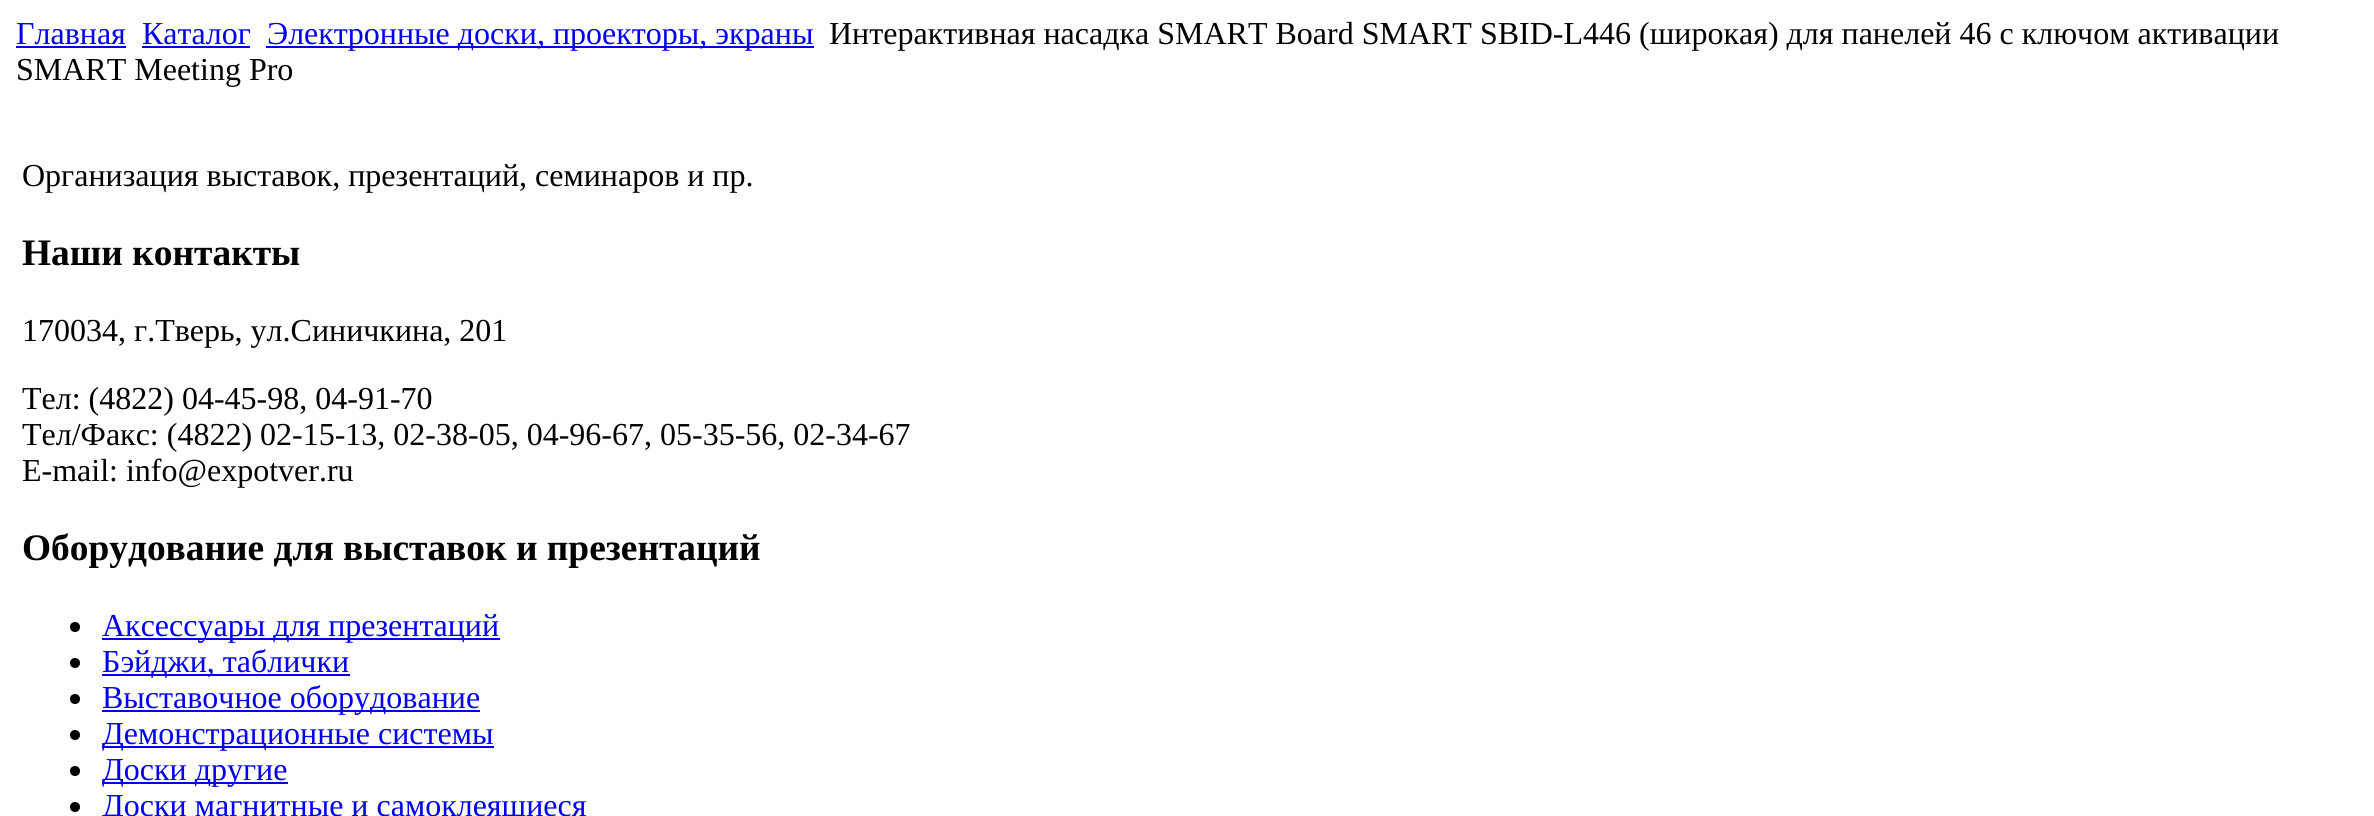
#include <cairo/cairo.h>
#include <math.h>
#include <stddef.h>

static cairo_t *cr;

static void use_color(int r, int g, int b) {
  cairo_set_source_rgb(cr, r / 255.0, g / 255.0, b / 255.0);
}

static void text(double x, double y, const char *s, const char *family, double size, int italic, int bold, int r, int g, int b) {
  cairo_select_font_face(cr, family, italic ? CAIRO_FONT_SLANT_ITALIC : CAIRO_FONT_SLANT_NORMAL,
    bold ? CAIRO_FONT_WEIGHT_BOLD : CAIRO_FONT_WEIGHT_NORMAL);
  cairo_set_font_size(cr, size);
  use_color(r, g, b);
  cairo_move_to(cr, x, y);
  cairo_show_text(cr, s);
}

static void box(double x, double y, double w, double h, int r, int g, int b) {
  use_color(r, g, b);
  cairo_rectangle(cr, x, y, w, h);
  cairo_fill(cr);
}

static void draw(void) {
  use_color(255, 255, 255);
  cairo_paint(cr);
  box(16, 46, 110, 2, 0, 0, 238);
  box(142, 46, 108, 2, 0, 0, 238);
  box(266, 46, 548, 2, 0, 0, 238);
  use_color(0, 0, 0);
  cairo_arc(cr, 75, 627, 5, 0, 2 * M_PI);
  cairo_fill(cr);
  box(102, 638, 398, 2, 0, 0, 238);
  use_color(0, 0, 0);
  cairo_arc(cr, 75, 663, 5, 0, 2 * M_PI);
  cairo_fill(cr);
  box(102, 674, 248, 2, 0, 0, 238);
  use_color(0, 0, 0);
  cairo_arc(cr, 75, 699, 5, 0, 2 * M_PI);
  cairo_fill(cr);
  box(102, 710, 378, 2, 0, 0, 238);
  use_color(0, 0, 0);
  cairo_arc(cr, 75, 735, 5, 0, 2 * M_PI);
  cairo_fill(cr);
  box(102, 746, 392, 2, 0, 0, 238);
  use_color(0, 0, 0);
  cairo_arc(cr, 75, 771, 5, 0, 2 * M_PI);
  cairo_fill(cr);
  box(102, 782, 186, 2, 0, 0, 238);
  use_color(0, 0, 0);
  cairo_arc(cr, 75, 807, 5, 0, 2 * M_PI);
  cairo_fill(cr);
  text(16, 44, "Главная", "Liberation Serif", 32, 0, 0, 0, 0, 238);
  text(142, 44, "Каталог", "Liberation Serif", 32, 0, 0, 0, 0, 238);
  text(267, 44, "Электронные доски, проекторы, экраны", "Liberation Serif", 32, 0, 0, 0, 0, 238);
  text(829, 44, "Интерактивная насадка SMART Board SMART SBID-L446 (широкая) для панелей 46 с ключом активации", "Liberation Serif", 32, 0, 0, 0, 0, 0);
  text(16, 80, "SMART Meeting Pro", "Liberation Serif", 32, 0, 0, 0, 0, 0);
  text(22, 186, "Организация выставок, презентаций, семинаров и пр.", "Liberation Serif", 32, 0, 0, 0, 0, 0);
  text(22, 265, "Наши контакты", "Liberation Serif", 37.4, 0, 1, 0, 0, 0);
  text(22, 341, "170034, г.Тверь, ул.Синичкина, 201", "Liberation Serif", 32, 0, 0, 0, 0, 0);
  text(22, 409, "Тел: (4822) 04-45-98, 04-91-70", "Liberation Serif", 32, 0, 0, 0, 0, 0);
  text(22, 445, "Тел/Факс: (4822) 02-15-13, 02-38-05, 04-96-67, 05-35-56, 02-34-67", "Liberation Serif", 32, 0, 0, 0, 0, 0);
  text(22, 481, "E-mail: info@expotver.ru", "Liberation Serif", 32, 0, 0, 0, 0, 0);
  text(22, 560, "Оборудование для выставок и презентаций", "Liberation Serif", 37.4, 0, 1, 0, 0, 0);
  text(102, 636, "Аксессуары для презентаций", "Liberation Serif", 32, 0, 0, 0, 0, 238);
  text(102, 672, "Бэйджи, таблички", "Liberation Serif", 32, 0, 0, 0, 0, 238);
  text(102, 708, "Выставочное оборудование", "Liberation Serif", 32, 0, 0, 0, 0, 238);
  text(102, 744, "Демонстрационные системы", "Liberation Serif", 32, 0, 0, 0, 0, 238);
  text(102, 780, "Доски другие", "Liberation Serif", 32, 0, 0, 0, 0, 238);
  text(102, 816, "Доски магнитные и самоклеящиеся", "Liberation Serif", 32, 0, 0, 0, 0, 238);
}

int main(void) {
  cairo_surface_t *surface = cairo_image_surface_create(CAIRO_FORMAT_RGB24, 2374, 816);
  cr = cairo_create(surface);
  cairo_font_options_t *options = cairo_font_options_create();
  cairo_font_options_set_hint_metrics(options, CAIRO_HINT_METRICS_OFF);
  cairo_font_options_set_hint_style(options, CAIRO_HINT_STYLE_NONE);
  cairo_set_font_options(cr, options);
  cairo_set_miter_limit(cr, 4);
  draw();
  cairo_surface_write_to_png(surface, "out.png");
  cairo_font_options_destroy(options);
  cairo_destroy(cr);
  cairo_surface_destroy(surface);
  return 0;
}
